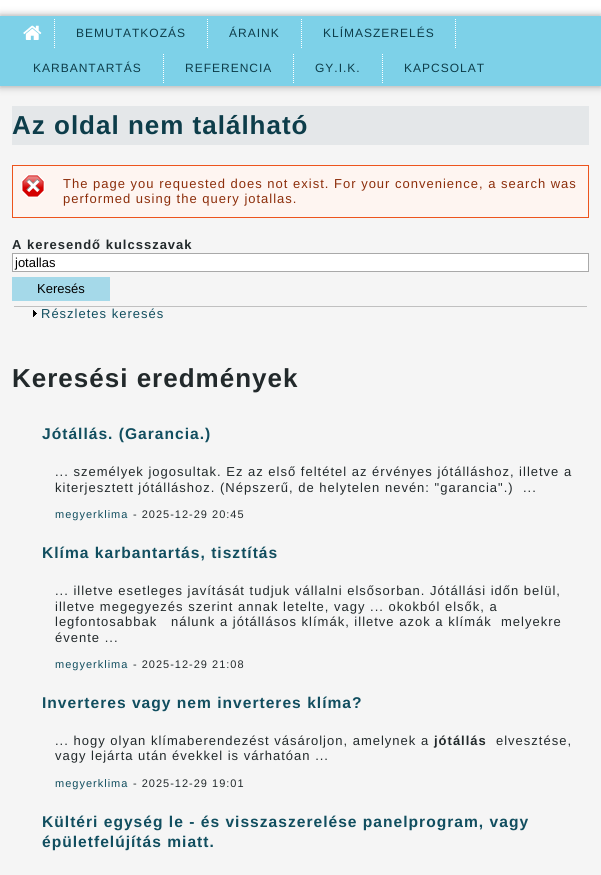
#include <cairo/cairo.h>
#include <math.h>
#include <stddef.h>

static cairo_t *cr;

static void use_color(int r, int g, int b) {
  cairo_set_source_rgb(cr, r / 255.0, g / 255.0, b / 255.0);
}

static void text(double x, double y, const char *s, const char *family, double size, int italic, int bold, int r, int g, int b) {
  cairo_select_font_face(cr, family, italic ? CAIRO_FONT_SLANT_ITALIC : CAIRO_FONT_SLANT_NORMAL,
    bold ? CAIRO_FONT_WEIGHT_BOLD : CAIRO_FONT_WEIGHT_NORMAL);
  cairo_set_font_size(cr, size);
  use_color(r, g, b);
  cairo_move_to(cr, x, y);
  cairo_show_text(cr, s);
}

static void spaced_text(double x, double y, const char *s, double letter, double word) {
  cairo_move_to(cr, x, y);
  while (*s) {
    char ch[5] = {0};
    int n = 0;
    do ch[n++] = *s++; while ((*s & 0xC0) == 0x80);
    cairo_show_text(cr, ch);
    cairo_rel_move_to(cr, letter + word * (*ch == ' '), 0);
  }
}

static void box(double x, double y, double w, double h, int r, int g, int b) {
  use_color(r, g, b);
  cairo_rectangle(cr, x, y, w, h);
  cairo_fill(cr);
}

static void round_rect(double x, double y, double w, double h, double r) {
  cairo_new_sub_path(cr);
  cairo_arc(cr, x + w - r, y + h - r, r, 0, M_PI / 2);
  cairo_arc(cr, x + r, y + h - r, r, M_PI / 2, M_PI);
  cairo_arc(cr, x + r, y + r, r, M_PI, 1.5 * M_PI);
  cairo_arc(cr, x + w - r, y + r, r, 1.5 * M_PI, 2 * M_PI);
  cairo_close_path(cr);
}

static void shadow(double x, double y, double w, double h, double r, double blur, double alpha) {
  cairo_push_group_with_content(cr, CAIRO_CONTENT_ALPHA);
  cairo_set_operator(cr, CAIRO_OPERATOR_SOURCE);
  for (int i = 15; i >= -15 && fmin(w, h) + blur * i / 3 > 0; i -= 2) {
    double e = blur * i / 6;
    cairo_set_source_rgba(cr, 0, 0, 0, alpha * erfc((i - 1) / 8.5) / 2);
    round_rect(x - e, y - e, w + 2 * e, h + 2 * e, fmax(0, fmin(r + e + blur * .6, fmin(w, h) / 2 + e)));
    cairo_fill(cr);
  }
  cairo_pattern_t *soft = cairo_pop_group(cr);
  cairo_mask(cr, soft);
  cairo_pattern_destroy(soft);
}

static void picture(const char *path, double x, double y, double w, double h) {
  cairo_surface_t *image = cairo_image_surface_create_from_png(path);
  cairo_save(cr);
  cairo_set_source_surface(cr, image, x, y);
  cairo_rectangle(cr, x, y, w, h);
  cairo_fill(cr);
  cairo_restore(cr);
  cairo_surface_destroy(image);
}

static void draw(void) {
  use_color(245, 245, 245);
  cairo_paint(cr);
  box(0, 0, 601, 16, 255, 255, 255);
  use_color(153, 153, 153);
  shadow(0, 16, 601, 70, 0, 4, 1);
  box(0, 16, 601, 70, 125, 209, 232);
  cairo_new_path(cr);
  cairo_move_to(cr, 54.5, 19);
  cairo_line_to(cr, 54.5, 48);
  use_color(255, 255, 255);
  cairo_set_line_width(cr, 1);
  cairo_set_dash(cr, (double[]){1, 1}, 2, 0);
  cairo_stroke(cr);
  picture("img_01.png", 23, 25, 19, 15);
  cairo_new_path(cr);
  cairo_move_to(cr, 207.5, 19);
  cairo_line_to(cr, 207.5, 48);
  cairo_stroke(cr);
  cairo_new_path(cr);
  cairo_move_to(cr, 301.5, 19);
  cairo_line_to(cr, 301.5, 48);
  cairo_stroke(cr);
  cairo_new_path(cr);
  cairo_move_to(cr, 455.5, 19);
  cairo_line_to(cr, 455.5, 48);
  cairo_stroke(cr);
  cairo_new_path(cr);
  cairo_move_to(cr, 163.5, 54);
  cairo_line_to(cr, 163.5, 83);
  cairo_stroke(cr);
  cairo_new_path(cr);
  cairo_move_to(cr, 293.5, 54);
  cairo_line_to(cr, 293.5, 83);
  cairo_stroke(cr);
  cairo_new_path(cr);
  cairo_move_to(cr, 382.5, 54);
  cairo_line_to(cr, 382.5, 83);
  cairo_stroke(cr);
  box(12, 106, 577, 39, 228, 231, 233);
  box(13, 166, 575, 51, 254, 245, 241);
  picture("img_02.png", 21, 174, 24, 24);
  cairo_rectangle(cr, 12.5, 165.5, 576, 52);
  use_color(237, 84, 29);
  cairo_set_dash(cr, NULL, 0, 0);
  cairo_stroke(cr);
  use_color(255, 255, 255);
  cairo_rectangle(cr, 12.5, 253.5, 576, 18);
  cairo_fill_preserve(cr);
  use_color(169, 169, 169);
  cairo_stroke(cr);
  box(12, 277, 98, 24, 165, 217, 233);
  box(14, 306, 573, 1, 192, 192, 192);
  picture("img_03.png", 33, 310, 4, 7);
  cairo_select_font_face(cr, "Liberation Sans", CAIRO_FONT_SLANT_NORMAL, CAIRO_FONT_WEIGHT_NORMAL);
  cairo_set_font_size(cr, 12);
  use_color(13, 61, 74);
  spaced_text(76, 37, "BEMUTATKOZÁS", 1, 0);
  spaced_text(229, 37, "ÁRAINK", 1, 0);
  spaced_text(323, 37, "KLÍMASZERELÉS", 1, 0);
  spaced_text(33, 72, "KARBANTARTÁS", 1, 0);
  spaced_text(185, 72, "REFERENCIA", 1, 0);
  spaced_text(315, 72, "GY.I.K.", 1, 0);
  spaced_text(404, 72, "KAPCSOLAT", 1, 0);
  cairo_select_font_face(cr, "Liberation Sans", CAIRO_FONT_SLANT_NORMAL, CAIRO_FONT_WEIGHT_BOLD);
  cairo_set_font_size(cr, 26);
  spaced_text(12, 134, "Az oldal nem található", 1, 0);
  cairo_select_font_face(cr, "Liberation Sans", CAIRO_FONT_SLANT_NORMAL, CAIRO_FONT_WEIGHT_NORMAL);
  cairo_set_font_size(cr, 13);
  use_color(140, 46, 11);
  spaced_text(63, 188, "The page you requested does not exist. For your convenience, a search was", 1, 0);
  spaced_text(63, 203, "performed using the query jotallas.", 1, 0);
  cairo_select_font_face(cr, "Liberation Sans", CAIRO_FONT_SLANT_NORMAL, CAIRO_FONT_WEIGHT_BOLD);
  use_color(34, 41, 43);
  spaced_text(12, 249, "A keresendő kulcsszavak", 1, 0);
  text(15, 267, "jotallas", "Liberation Sans", 13, 0, 0, 0, 0, 0);
  text(37, 293, "Keresés", "Liberation Sans", 13, 0, 0, 0, 0, 0);
  use_color(17, 78, 95);
  spaced_text(41, 318, "Részletes keresés", 1, 0);
  cairo_select_font_face(cr, "Liberation Sans", CAIRO_FONT_SLANT_NORMAL, CAIRO_FONT_WEIGHT_BOLD);
  cairo_set_font_size(cr, 26);
  use_color(34, 41, 43);
  spaced_text(12, 387, "Keresési eredmények", 1, 0);
  cairo_set_font_size(cr, 15.6);
  use_color(17, 78, 95);
  spaced_text(42, 439, "Jótállás. (Garancia.)", 1, 0);
  cairo_select_font_face(cr, "Liberation Sans", CAIRO_FONT_SLANT_NORMAL, CAIRO_FONT_WEIGHT_NORMAL);
  cairo_set_font_size(cr, 13);
  use_color(34, 41, 43);
  spaced_text(55, 476, "... személyek jogosultak. Ez az első feltétel az érvényes jótálláshoz, illetve a", 1, 0);
  spaced_text(55, 492, "kiterjesztett jótálláshoz. (Népszerű, de helytelen nevén: \"garancia\".)", 1, 0);
  spaced_text(523, 492, "...", 1, 0);
  cairo_set_font_size(cr, 11);
  use_color(17, 78, 95);
  spaced_text(55, 518, "megyerklima", 1, 0);
  use_color(34, 41, 43);
  spaced_text(133, 518, "- 2025-12-29 20:45", 1, 0);
  cairo_select_font_face(cr, "Liberation Sans", CAIRO_FONT_SLANT_NORMAL, CAIRO_FONT_WEIGHT_BOLD);
  cairo_set_font_size(cr, 15.6);
  use_color(17, 78, 95);
  spaced_text(42, 558, "Klíma karbantartás, tisztítás", 1, 0);
  cairo_select_font_face(cr, "Liberation Sans", CAIRO_FONT_SLANT_NORMAL, CAIRO_FONT_WEIGHT_NORMAL);
  cairo_set_font_size(cr, 13);
  use_color(34, 41, 43);
  spaced_text(55, 595, "... illetve esetleges javítását tudjuk vállalni elsősorban. Jótállási időn belül,", 1, 0);
  spaced_text(55, 611, "illetve megegyezés szerint annak letelte, vagy ... okokból elsők, a", 1, 0);
  spaced_text(55, 626, "legfontosabbak", 1, 0);
  spaced_text(171, 626, "nálunk a jótállásos klímák, illetve azok a klímák", 1, 0);
  spaced_text(501, 626, "melyekre", 1, 0);
  spaced_text(55, 642, "évente ...", 1, 0);
  cairo_set_font_size(cr, 11);
  use_color(17, 78, 95);
  spaced_text(55, 668, "megyerklima", 1, 0);
  use_color(34, 41, 43);
  spaced_text(133, 668, "- 2025-12-29 21:08", 1, 0);
  cairo_select_font_face(cr, "Liberation Sans", CAIRO_FONT_SLANT_NORMAL, CAIRO_FONT_WEIGHT_BOLD);
  cairo_set_font_size(cr, 15.6);
  use_color(17, 78, 95);
  spaced_text(42, 708, "Inverteres vagy nem inverteres klíma?", 1, 0);
  cairo_select_font_face(cr, "Liberation Sans", CAIRO_FONT_SLANT_NORMAL, CAIRO_FONT_WEIGHT_NORMAL);
  cairo_set_font_size(cr, 13);
  use_color(34, 41, 43);
  spaced_text(55, 745, "... hogy olyan klímaberendezést vásároljon, amelynek a", 1, 0);
  cairo_select_font_face(cr, "Liberation Sans", CAIRO_FONT_SLANT_NORMAL, CAIRO_FONT_WEIGHT_BOLD);
  spaced_text(434, 745, "jótállás", 1, 0);
  cairo_select_font_face(cr, "Liberation Sans", CAIRO_FONT_SLANT_NORMAL, CAIRO_FONT_WEIGHT_NORMAL);
  spaced_text(496, 745, "elvesztése,", 1, 0);
  spaced_text(55, 760, "vagy lejárta után évekkel is várhatóan ...", 1, 0);
  cairo_set_font_size(cr, 11);
  use_color(17, 78, 95);
  spaced_text(55, 787, "megyerklima", 1, 0);
  use_color(34, 41, 43);
  spaced_text(133, 787, "- 2025-12-29 19:01", 1, 0);
  cairo_select_font_face(cr, "Liberation Sans", CAIRO_FONT_SLANT_NORMAL, CAIRO_FONT_WEIGHT_BOLD);
  cairo_set_font_size(cr, 15.6);
  use_color(17, 78, 95);
  spaced_text(42, 827, "Kültéri egység le - és visszaszerelése panelprogram, vagy", 1, 0);
  spaced_text(42, 847, "épületfelújítás miatt.", 1, 0);
}

int main(void) {
  cairo_surface_t *surface = cairo_image_surface_create(CAIRO_FORMAT_RGB24, 601, 875);
  cr = cairo_create(surface);
  cairo_font_options_t *options = cairo_font_options_create();
  cairo_font_options_set_hint_metrics(options, CAIRO_HINT_METRICS_OFF);
  cairo_font_options_set_hint_style(options, CAIRO_HINT_STYLE_NONE);
  cairo_set_font_options(cr, options);
  cairo_set_miter_limit(cr, 4);
  draw();
  cairo_surface_write_to_png(surface, "out.png");
  cairo_font_options_destroy(options);
  cairo_destroy(cr);
  cairo_surface_destroy(surface);
  return 0;
}
